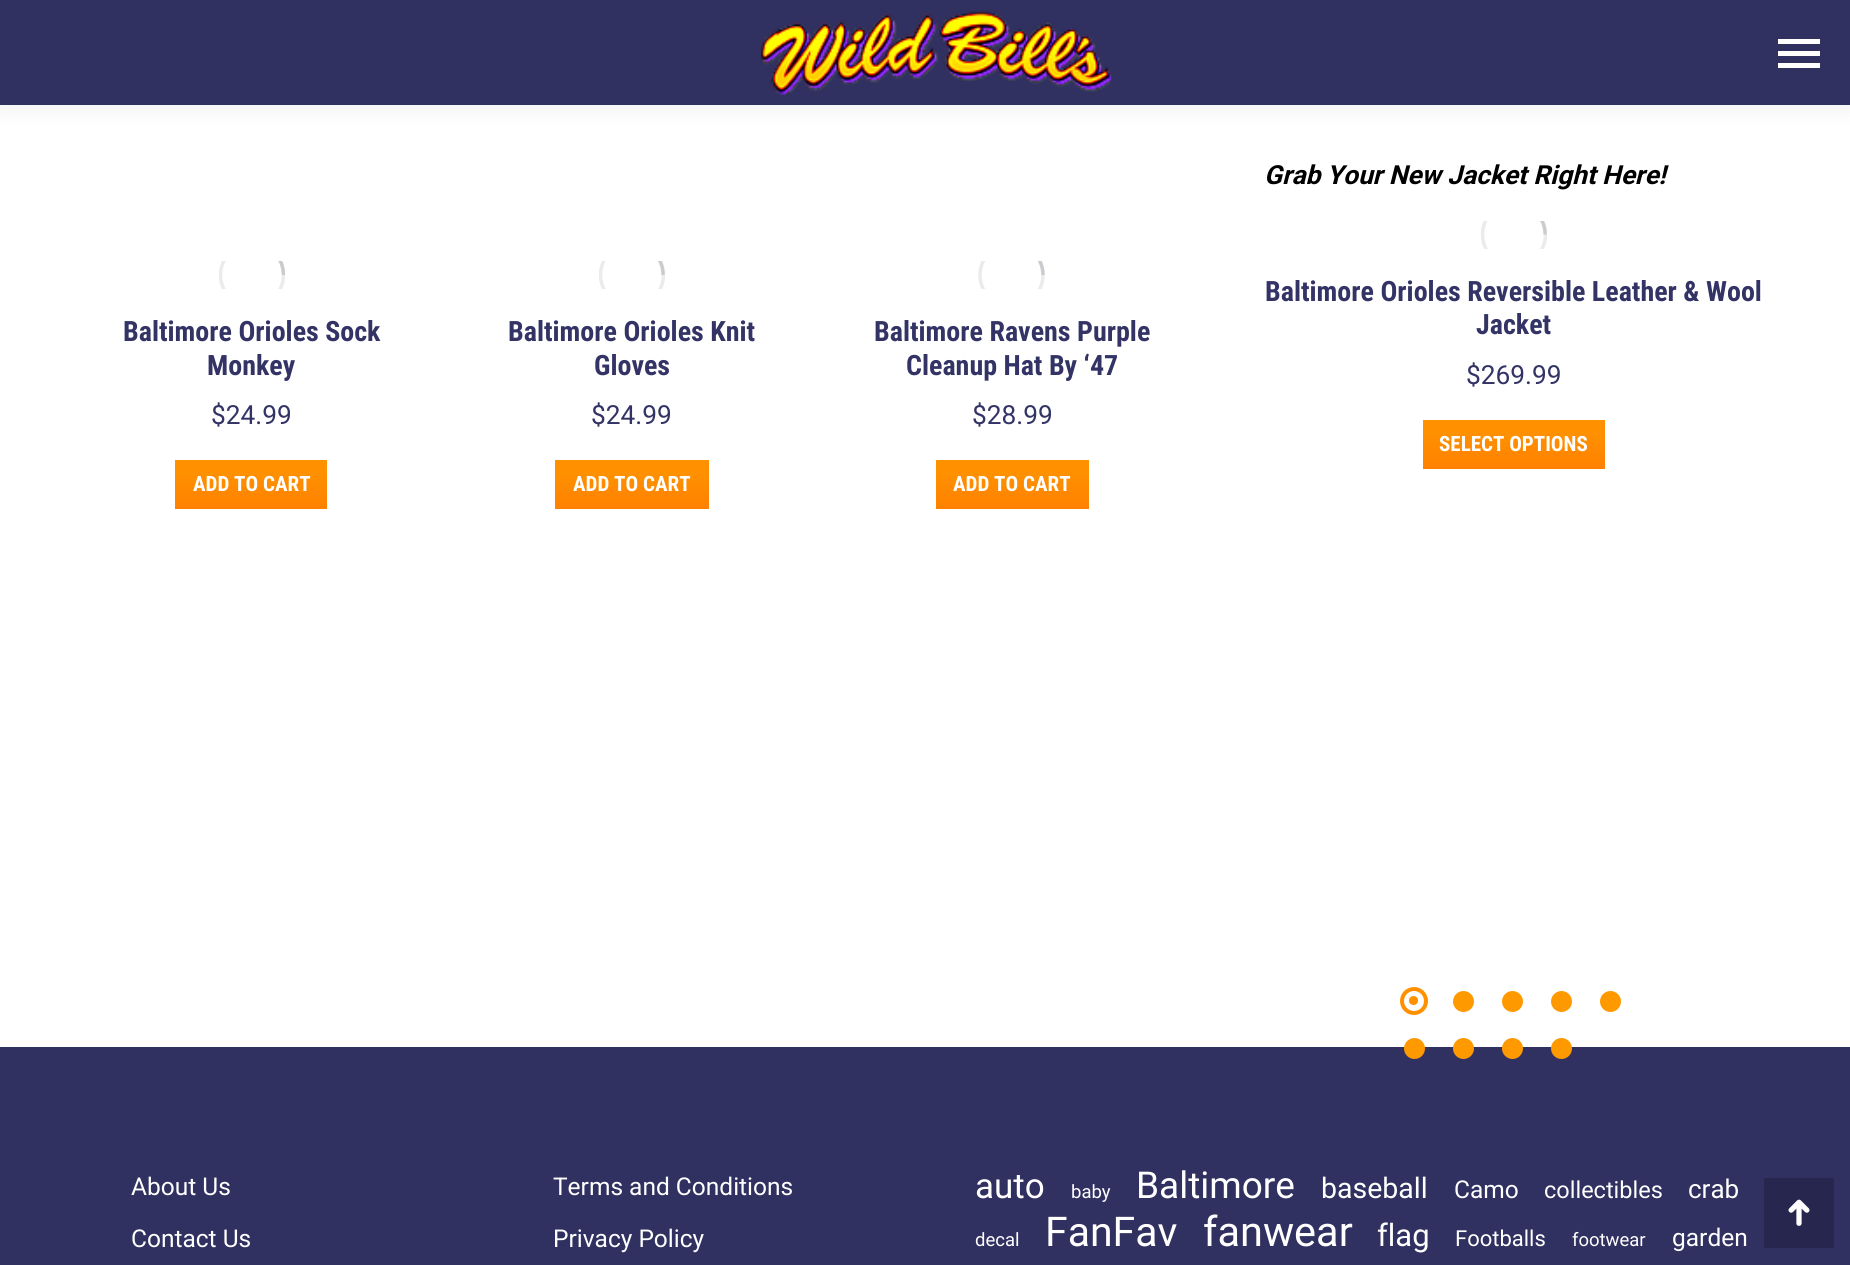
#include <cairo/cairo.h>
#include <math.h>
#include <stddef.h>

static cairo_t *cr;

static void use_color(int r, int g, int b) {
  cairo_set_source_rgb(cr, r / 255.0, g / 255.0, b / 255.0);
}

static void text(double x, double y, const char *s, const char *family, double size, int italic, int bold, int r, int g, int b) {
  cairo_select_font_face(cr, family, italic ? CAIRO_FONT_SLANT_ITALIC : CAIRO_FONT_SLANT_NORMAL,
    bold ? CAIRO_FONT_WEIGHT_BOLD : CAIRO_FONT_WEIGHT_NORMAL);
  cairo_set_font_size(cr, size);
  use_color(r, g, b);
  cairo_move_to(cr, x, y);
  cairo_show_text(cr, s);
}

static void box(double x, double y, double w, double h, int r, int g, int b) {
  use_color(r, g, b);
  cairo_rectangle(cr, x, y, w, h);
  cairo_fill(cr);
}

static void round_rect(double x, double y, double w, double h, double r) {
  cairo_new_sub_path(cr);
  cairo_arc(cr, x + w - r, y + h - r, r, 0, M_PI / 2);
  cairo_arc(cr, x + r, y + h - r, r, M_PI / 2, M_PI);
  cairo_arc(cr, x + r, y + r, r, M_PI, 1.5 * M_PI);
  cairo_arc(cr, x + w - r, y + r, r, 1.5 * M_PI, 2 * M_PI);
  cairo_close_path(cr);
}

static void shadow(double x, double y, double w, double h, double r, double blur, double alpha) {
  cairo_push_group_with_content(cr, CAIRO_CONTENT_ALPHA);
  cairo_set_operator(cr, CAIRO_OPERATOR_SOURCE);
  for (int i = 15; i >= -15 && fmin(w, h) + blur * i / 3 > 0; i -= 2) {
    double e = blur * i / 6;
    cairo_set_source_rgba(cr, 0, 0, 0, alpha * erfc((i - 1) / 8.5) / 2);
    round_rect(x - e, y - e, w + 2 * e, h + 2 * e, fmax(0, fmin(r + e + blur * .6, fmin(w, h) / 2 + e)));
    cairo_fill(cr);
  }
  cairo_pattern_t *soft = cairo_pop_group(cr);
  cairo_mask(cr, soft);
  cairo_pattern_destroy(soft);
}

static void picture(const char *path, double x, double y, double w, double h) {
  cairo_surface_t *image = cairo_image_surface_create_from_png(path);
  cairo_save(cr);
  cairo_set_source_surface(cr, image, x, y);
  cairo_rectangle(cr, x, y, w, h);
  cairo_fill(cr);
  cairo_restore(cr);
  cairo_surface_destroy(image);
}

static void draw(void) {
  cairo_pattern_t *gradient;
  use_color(255, 255, 255);
  cairo_paint(cr);
  use_color(0, 0, 0);
  shadow(-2, -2, 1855, 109, 0, 13, 0.07);
  box(0, 0, 1850, 105, 48, 48, 97);
  picture("img_01.png", 761, 11, 351, 84);
  box(1778, 39, 42, 5, 255, 255, 255);
  box(1778, 51, 42, 5, 255, 255, 255);
  box(1778, 63, 42, 5, 255, 255, 255);
  cairo_save(cr);
  cairo_rectangle(cr, 219, 261, 66, 28);
  cairo_clip(cr);
  cairo_arc(cr, 252, 275, 31.5, 0, 2 * M_PI);
  use_color(235, 235, 236);
  cairo_set_line_width(cr, 3.5);
  cairo_stroke(cr);
  cairo_new_path(cr);
  cairo_move_to(cr, 283.5, 275);
  cairo_curve_to(cr, 283.5, 257.5, 269.5, 243, 252, 243);
  cairo_set_source_rgba(cr, 0.42, 0.435, 0.455, 0.25);
  cairo_stroke(cr);
  cairo_restore(cr);
  gradient = cairo_pattern_create_linear(251, 460, 251, 509);
  cairo_pattern_add_color_stop_rgba(gradient, 0.3, 1, 0.565, 0, 1);
  cairo_pattern_add_color_stop_rgba(gradient, 1, 1, 0.502, 0, 1);
  cairo_set_source(cr, gradient);
  cairo_pattern_destroy(gradient);
  cairo_rectangle(cr, 175, 460, 152, 49);
  cairo_fill(cr);
  cairo_save(cr);
  cairo_rectangle(cr, 599, 261, 66, 28);
  cairo_clip(cr);
  cairo_arc(cr, 632, 275, 31.5, 0, 2 * M_PI);
  use_color(235, 235, 236);
  cairo_set_line_width(cr, 3.5);
  cairo_stroke(cr);
  cairo_new_path(cr);
  cairo_move_to(cr, 663, 275);
  cairo_curve_to(cr, 663, 257.5, 649, 243, 632, 243);
  cairo_set_source_rgba(cr, 0.42, 0.435, 0.455, 0.25);
  cairo_stroke(cr);
  cairo_restore(cr);
  gradient = cairo_pattern_create_linear(632, 460, 632, 509);
  cairo_pattern_add_color_stop_rgba(gradient, 0.3, 1, 0.565, 0, 1);
  cairo_pattern_add_color_stop_rgba(gradient, 1, 1, 0.502, 0, 1);
  cairo_set_source(cr, gradient);
  cairo_pattern_destroy(gradient);
  cairo_rectangle(cr, 555, 460, 154, 49);
  cairo_fill(cr);
  cairo_save(cr);
  cairo_rectangle(cr, 978, 261, 67, 28);
  cairo_clip(cr);
  cairo_arc(cr, 1011.5, 275, 31.5, 0, 2 * M_PI);
  use_color(235, 235, 236);
  cairo_set_line_width(cr, 3.5);
  cairo_stroke(cr);
  cairo_new_path(cr);
  cairo_move_to(cr, 1043, 275);
  cairo_curve_to(cr, 1043, 257.5, 1029, 243, 1011.5, 243);
  cairo_set_source_rgba(cr, 0.42, 0.435, 0.455, 0.25);
  cairo_stroke(cr);
  cairo_restore(cr);
  gradient = cairo_pattern_create_linear(1012, 460, 1012, 509);
  cairo_pattern_add_color_stop_rgba(gradient, 0.3, 1, 0.565, 0, 1);
  cairo_pattern_add_color_stop_rgba(gradient, 1, 1, 0.502, 0, 1);
  cairo_set_source(cr, gradient);
  cairo_pattern_destroy(gradient);
  cairo_rectangle(cr, 936, 460, 153, 49);
  cairo_fill(cr);
  cairo_save(cr);
  cairo_rectangle(cr, 1481, 221, 66, 28);
  cairo_clip(cr);
  cairo_arc(cr, 1514, 234.5, 31.5, 0, 2 * M_PI);
  use_color(235, 235, 236);
  cairo_set_line_width(cr, 3.5);
  cairo_stroke(cr);
  cairo_new_path(cr);
  cairo_move_to(cr, 1545, 234.5);
  cairo_curve_to(cr, 1545, 217, 1531, 203, 1514, 203);
  cairo_set_source_rgba(cr, 0.42, 0.435, 0.455, 0.25);
  cairo_stroke(cr);
  cairo_restore(cr);
  gradient = cairo_pattern_create_linear(1514, 420, 1514, 469);
  cairo_pattern_add_color_stop_rgba(gradient, 0.3, 1, 0.565, 0, 1);
  cairo_pattern_add_color_stop_rgba(gradient, 1, 1, 0.502, 0, 1);
  cairo_set_source(cr, gradient);
  cairo_pattern_destroy(gradient);
  cairo_rectangle(cr, 1423, 420, 182, 49);
  cairo_fill(cr);
  cairo_arc(cr, 1414, 1001, 12, 0, 2 * M_PI);
  use_color(255, 144, 0);
  cairo_set_line_width(cr, 4);
  cairo_stroke(cr);
  cairo_arc(cr, 1413.5, 1000.5, 4.5, 0, 2 * M_PI);
  cairo_fill(cr);
  use_color(255, 153, 0);
  cairo_arc(cr, 1463.5, 1001.5, 10.5, 0, 2 * M_PI);
  cairo_fill(cr);
  cairo_arc(cr, 1512.5, 1001.5, 10.5, 0, 2 * M_PI);
  cairo_fill(cr);
  cairo_arc(cr, 1561.5, 1001.5, 10.5, 0, 2 * M_PI);
  cairo_fill(cr);
  cairo_arc(cr, 1610.5, 1001.5, 10.5, 0, 2 * M_PI);
  cairo_fill(cr);
  box(0, 1047, 1850, 218, 48, 48, 97);
  use_color(255, 153, 0);
  cairo_arc(cr, 1414.5, 1048.5, 10.5, 0, 2 * M_PI);
  cairo_fill(cr);
  cairo_arc(cr, 1463.5, 1048.5, 10.5, 0, 2 * M_PI);
  cairo_fill(cr);
  cairo_arc(cr, 1512.5, 1048.5, 10.5, 0, 2 * M_PI);
  cairo_fill(cr);
  cairo_arc(cr, 1561.5, 1048.5, 10.5, 0, 2 * M_PI);
  cairo_fill(cr);
  box(1764, 1178, 70, 70, 38, 38, 78);
  picture("img_02.png", 1788, 1199, 22, 27);
  text(123, 341, "Baltimore Orioles Sock", "Roboto Condensed", 28, 0, 1, 51, 51, 102);
  text(207, 375, "Monkey", "Roboto Condensed", 28, 0, 1, 51, 51, 102);
  text(211, 424, "$24.99", "Roboto", 26.25, 0, 0, 51, 51, 102);
  text(193, 491, "ADD TO CART", "Roboto Condensed", 21, 0, 1, 255, 255, 255);
  text(508, 341, "Baltimore Orioles Knit", "Roboto Condensed", 28, 0, 1, 51, 51, 102);
  text(594, 375, "Gloves", "Roboto Condensed", 28, 0, 1, 51, 51, 102);
  text(591, 424, "$24.99", "Roboto", 26.25, 0, 0, 51, 51, 102);
  text(573, 491, "ADD TO CART", "Roboto Condensed", 21, 0, 1, 255, 255, 255);
  text(874, 341, "Baltimore Ravens Purple", "Roboto Condensed", 28, 0, 1, 51, 51, 102);
  text(906, 375, "Cleanup Hat By ‘47", "Roboto Condensed", 28, 0, 1, 51, 51, 102);
  text(972, 424, "$28.99", "Roboto", 26.25, 0, 0, 51, 51, 102);
  text(953, 491, "ADD TO CART", "Roboto Condensed", 21, 0, 1, 255, 255, 255);
  text(1264, 184, "Grab Your New Jacket Right Here!", "Roboto", 26.25, 1, 1, 0, 0, 0);
  text(1265, 301, "Baltimore Orioles Reversible Leather & Wool", "Roboto Condensed", 28, 0, 1, 51, 51, 102);
  text(1476, 334, "Jacket", "Roboto Condensed", 28, 0, 1, 51, 51, 102);
  text(1466, 384, "$269.99", "Roboto", 26.25, 0, 0, 51, 51, 102);
  text(1439, 451, "SELECT OPTIONS", "Roboto Condensed", 21, 0, 1, 255, 255, 255);
  text(131, 1195, "About Us", "Roboto", 24.5, 0, 0, 255, 255, 255);
  text(131, 1247, "Contact Us", "Roboto", 24.5, 0, 0, 255, 255, 255);
  text(553, 1195, "Terms and Conditions", "Roboto", 24.5, 0, 0, 255, 255, 255);
  text(553, 1247, "Privacy Policy", "Roboto", 24.5, 0, 0, 255, 255, 255);
  text(975, 1198, "auto", "Roboto", 35, 0, 0, 255, 255, 255);
  text(1071, 1198, "baby", "Roboto", 18.5, 0, 0, 255, 255, 255);
  text(1136, 1198, "Baltimore", "Roboto", 37, 0, 0, 255, 255, 255);
  text(1321, 1198, "baseball", "Roboto", 28.5, 0, 0, 255, 255, 255);
  text(1454, 1198, "Camo", "Roboto", 24.5, 0, 0, 255, 255, 255);
  text(1544, 1198, "collectibles", "Roboto", 23.5, 0, 0, 255, 255, 255);
  text(1688, 1198, "crab", "Roboto", 26, 0, 0, 255, 255, 255);
  text(975, 1246, "decal", "Roboto", 18.5, 0, 0, 255, 255, 255);
  text(1045, 1246, "FanFav", "Roboto", 41, 0, 0, 255, 255, 255);
  text(1203, 1246, "fanwear", "Roboto", 41.5, 0, 0, 255, 255, 255);
  text(1377, 1246, "flag", "Roboto", 31, 0, 0, 255, 255, 255);
  text(1455, 1246, "Footballs", "Roboto", 22, 0, 0, 255, 255, 255);
  text(1572, 1246, "footwear", "Roboto", 18.5, 0, 0, 255, 255, 255);
  text(1672, 1246, "garden", "Roboto", 24.5, 0, 0, 255, 255, 255);
}

int main(void) {
  cairo_surface_t *surface = cairo_image_surface_create(CAIRO_FORMAT_RGB24, 1850, 1265);
  cr = cairo_create(surface);
  cairo_font_options_t *options = cairo_font_options_create();
  cairo_font_options_set_hint_metrics(options, CAIRO_HINT_METRICS_OFF);
  cairo_font_options_set_hint_style(options, CAIRO_HINT_STYLE_NONE);
  cairo_set_font_options(cr, options);
  cairo_set_miter_limit(cr, 4);
  draw();
  cairo_surface_write_to_png(surface, "out.png");
  cairo_font_options_destroy(options);
  cairo_destroy(cr);
  cairo_surface_destroy(surface);
  return 0;
}
